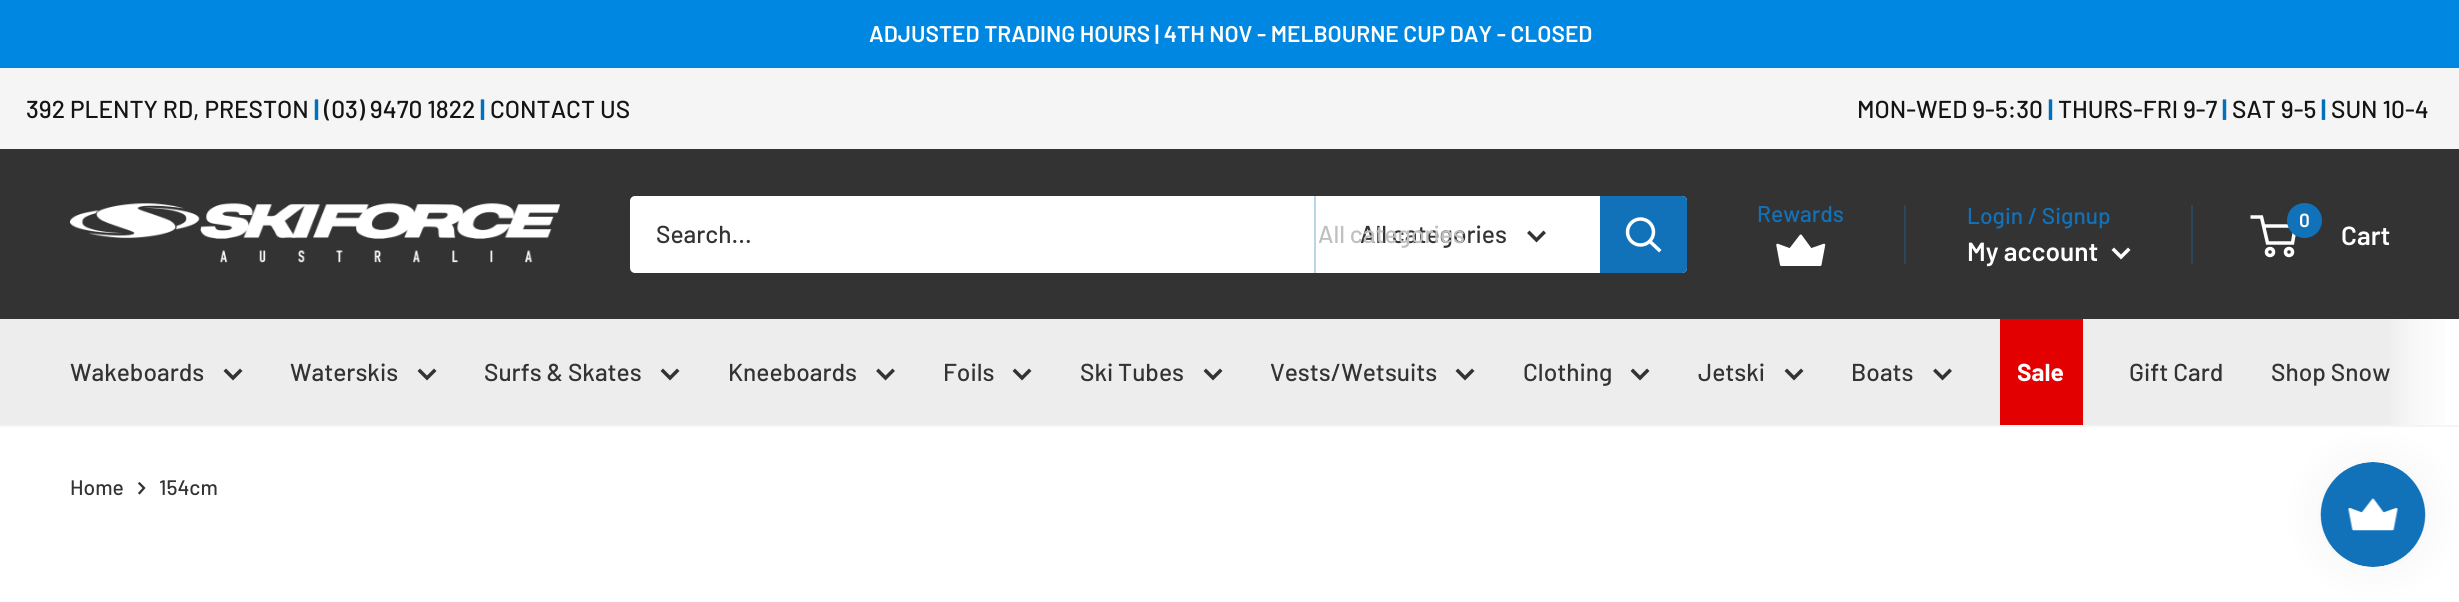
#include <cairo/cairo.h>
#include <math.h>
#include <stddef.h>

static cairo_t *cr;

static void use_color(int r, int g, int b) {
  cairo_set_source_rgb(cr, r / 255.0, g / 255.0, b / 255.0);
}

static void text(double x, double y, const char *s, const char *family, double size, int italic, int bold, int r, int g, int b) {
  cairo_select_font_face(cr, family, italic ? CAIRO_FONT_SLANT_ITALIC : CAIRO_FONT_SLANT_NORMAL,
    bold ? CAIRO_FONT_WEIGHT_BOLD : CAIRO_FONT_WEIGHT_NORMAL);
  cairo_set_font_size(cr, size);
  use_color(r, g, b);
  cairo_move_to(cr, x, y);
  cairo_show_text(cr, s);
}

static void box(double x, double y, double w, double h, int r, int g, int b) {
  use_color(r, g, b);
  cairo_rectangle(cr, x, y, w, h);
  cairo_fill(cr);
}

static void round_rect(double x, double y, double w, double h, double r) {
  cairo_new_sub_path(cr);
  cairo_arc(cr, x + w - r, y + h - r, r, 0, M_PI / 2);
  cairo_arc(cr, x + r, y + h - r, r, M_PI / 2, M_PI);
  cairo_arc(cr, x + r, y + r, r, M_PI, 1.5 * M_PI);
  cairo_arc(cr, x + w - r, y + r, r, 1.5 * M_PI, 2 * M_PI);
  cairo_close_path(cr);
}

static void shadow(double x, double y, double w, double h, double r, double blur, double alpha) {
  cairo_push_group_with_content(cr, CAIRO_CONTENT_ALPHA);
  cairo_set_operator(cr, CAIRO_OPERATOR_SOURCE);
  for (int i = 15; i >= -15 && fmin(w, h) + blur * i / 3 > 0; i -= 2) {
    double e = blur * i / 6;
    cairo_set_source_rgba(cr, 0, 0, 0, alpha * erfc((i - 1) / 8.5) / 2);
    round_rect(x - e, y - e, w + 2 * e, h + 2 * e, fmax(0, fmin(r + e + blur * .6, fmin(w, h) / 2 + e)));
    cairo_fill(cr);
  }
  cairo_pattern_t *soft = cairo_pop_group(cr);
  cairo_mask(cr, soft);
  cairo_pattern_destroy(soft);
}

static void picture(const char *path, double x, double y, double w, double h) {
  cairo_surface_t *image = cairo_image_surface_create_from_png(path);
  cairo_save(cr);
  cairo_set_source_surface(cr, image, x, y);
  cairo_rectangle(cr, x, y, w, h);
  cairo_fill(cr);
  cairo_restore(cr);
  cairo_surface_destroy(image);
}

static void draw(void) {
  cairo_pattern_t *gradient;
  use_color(255, 255, 255);
  cairo_paint(cr);
  box(0, 0, 2459, 67, 0, 135, 226);
  box(0, 67, 2459, 1, 5, 129, 214);
  box(0, 68, 2459, 81, 245, 245, 245);
  box(0, 149, 2459, 170, 51, 51, 51);
  picture("img_01.png", 70, 203, 490, 60);
  use_color(255, 255, 255);
  round_rect(630, 196, 1057, 77, 5);
  cairo_fill(cr);
  box(1314, 196, 2, 77, 184, 213, 234);
  cairo_new_path(cr);
  cairo_move_to(cr, 1543.5, 233);
  cairo_line_to(cr, 1536.5, 240);
  cairo_line_to(cr, 1529.5, 233);
  use_color(51, 51, 51);
  cairo_set_line_width(cr, 3.5);
  cairo_set_line_cap(cr, CAIRO_LINE_CAP_SQUARE);
  cairo_stroke(cr);
  use_color(17, 114, 186);
  cairo_new_path(cr);
  cairo_move_to(cr, 1600, 196);
  cairo_line_to(cr, 1682, 196);
  cairo_curve_to(cr, 1685, 196, 1687, 198, 1687, 201);
  cairo_line_to(cr, 1687, 268);
  cairo_curve_to(cr, 1687, 271, 1685, 273, 1682, 273);
  cairo_line_to(cr, 1600, 273);
  cairo_close_path(cr);
  cairo_fill(cr);
  cairo_new_path(cr);
  cairo_move_to(cr, 1659, 250);
  cairo_line_to(cr, 1650, 241.5);
  use_color(255, 255, 255);
  cairo_stroke(cr);
  cairo_arc(cr, 1640.5, 232, 13, 0, 2 * M_PI);
  cairo_set_line_cap(cr, CAIRO_LINE_CAP_BUTT);
  cairo_stroke(cr);
  box(1904, 205, 2, 59, 41, 70, 92);
  picture("img_02.png", 1776, 234, 50, 32);
  box(2191, 205, 2, 59, 41, 70, 92);
  cairo_new_path(cr);
  cairo_move_to(cr, 2128, 250);
  cairo_line_to(cr, 2121, 257);
  cairo_line_to(cr, 2114, 250);
  use_color(255, 255, 255);
  cairo_set_line_cap(cr, CAIRO_LINE_CAP_SQUARE);
  cairo_stroke(cr);
  cairo_arc(cr, 2270, 252, 3.5, 0, 2 * M_PI);
  cairo_set_line_cap(cr, CAIRO_LINE_CAP_BUTT);
  cairo_stroke(cr);
  cairo_arc(cr, 2289, 252, 3.5, 0, 2 * M_PI);
  cairo_stroke(cr);
  cairo_new_path(cr);
  cairo_move_to(cr, 2263.5, 226);
  cairo_line_to(cr, 2295.5, 226);
  cairo_line_to(cr, 2292.5, 243);
  cairo_line_to(cr, 2267.5, 243);
  cairo_line_to(cr, 2261.5, 217);
  cairo_line_to(cr, 2250.5, 217);
  cairo_stroke(cr);
  use_color(17, 114, 186);
  cairo_arc(cr, 2304.5, 220.5, 17.5, 0, 2 * M_PI);
  cairo_fill(cr);
  box(0, 319, 2391, 106, 237, 237, 237);
  box(0, 425, 2459, 2, 245, 245, 245);
  cairo_new_path(cr);
  cairo_move_to(cr, 240, 371);
  cairo_line_to(cr, 233, 378);
  cairo_line_to(cr, 226, 371);
  use_color(51, 51, 51);
  cairo_set_line_cap(cr, CAIRO_LINE_CAP_SQUARE);
  cairo_stroke(cr);
  cairo_new_path(cr);
  cairo_move_to(cr, 434, 371);
  cairo_line_to(cr, 427, 378);
  cairo_line_to(cr, 420, 371);
  cairo_stroke(cr);
  cairo_new_path(cr);
  cairo_move_to(cr, 677, 371);
  cairo_line_to(cr, 670, 378);
  cairo_line_to(cr, 663, 371);
  cairo_stroke(cr);
  cairo_new_path(cr);
  cairo_move_to(cr, 892.5, 371);
  cairo_line_to(cr, 885.5, 378);
  cairo_line_to(cr, 878.5, 371);
  cairo_stroke(cr);
  cairo_new_path(cr);
  cairo_move_to(cr, 1029, 371);
  cairo_line_to(cr, 1022, 378);
  cairo_line_to(cr, 1015, 371);
  cairo_stroke(cr);
  cairo_new_path(cr);
  cairo_move_to(cr, 1220, 371);
  cairo_line_to(cr, 1213, 378);
  cairo_line_to(cr, 1206, 371);
  cairo_stroke(cr);
  cairo_new_path(cr);
  cairo_move_to(cr, 1472, 371);
  cairo_line_to(cr, 1465, 378);
  cairo_line_to(cr, 1458, 371);
  cairo_stroke(cr);
  cairo_new_path(cr);
  cairo_move_to(cr, 1647, 371);
  cairo_line_to(cr, 1640, 378);
  cairo_line_to(cr, 1633, 371);
  cairo_stroke(cr);
  cairo_new_path(cr);
  cairo_move_to(cr, 1801, 371);
  cairo_line_to(cr, 1794, 378);
  cairo_line_to(cr, 1787, 371);
  cairo_stroke(cr);
  cairo_new_path(cr);
  cairo_move_to(cr, 1949.5, 371);
  cairo_line_to(cr, 1942.5, 378);
  cairo_line_to(cr, 1935.5, 371);
  cairo_stroke(cr);
  box(2000, 319, 83, 106, 226, 0, 0);
  gradient = cairo_pattern_create_linear(2391, 372, 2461, 372);
  cairo_pattern_add_color_stop_rgba(gradient, 0, 0.937, 0.937, 0.937, 1);
  cairo_pattern_add_color_stop_rgba(gradient, 0.35, 0.973, 0.973, 0.973, 1);
  cairo_pattern_add_color_stop_rgba(gradient, 1, 1, 1, 1, 1);
  cairo_set_source(cr, gradient);
  cairo_pattern_destroy(gradient);
  cairo_rectangle(cr, 2391, 319, 54, 106);
  cairo_fill(cr);
  cairo_new_path(cr);
  cairo_move_to(cr, 139.5, 483.5);
  cairo_line_to(cr, 144, 488);
  cairo_line_to(cr, 139.5, 493);
  use_color(51, 51, 51);
  cairo_set_line_width(cr, 2.3);
  cairo_stroke(cr);
  use_color(0, 0, 0);
  shadow(2321, 462, 105, 105, 52.5, 22, 0.05);
  picture("img_03.png", 2320, 462, 106, 105);
  text(869, 42, "ADJUSTED TRADING HOURS | 4TH NOV - MELBOURNE CUP DAY - CLOSED", "Barlow SemiBold", 22.75, 0, 0, 255, 255, 255);
  text(26, 118, "392 PLENTY RD, PRESTON", "Barlow Medium", 24.5, 0, 0, 20, 20, 20);
  text(314, 118, "|", "Barlow", 24.5, 0, 1, 0, 113, 186);
  text(324, 118, "(03) 9470 1822", "Barlow Medium", 24.5, 0, 0, 20, 20, 20);
  text(480, 118, "|", "Barlow", 24.5, 0, 1, 0, 113, 186);
  text(490, 118, "CONTACT US", "Barlow Medium", 24.5, 0, 0, 20, 20, 20);
  text(1857, 118, "MON-WED 9-5:30", "Barlow Medium", 24.5, 0, 0, 20, 20, 20);
  text(2048, 118, "|", "Barlow", 24.5, 0, 1, 0, 113, 186);
  text(2058, 118, "THURS-FRI 9-7", "Barlow Medium", 24.5, 0, 0, 20, 20, 20);
  text(2222, 118, "|", "Barlow", 24.5, 0, 1, 0, 113, 186);
  text(2232, 118, "SAT 9-5", "Barlow Medium", 24.5, 0, 0, 20, 20, 20);
  text(2321, 118, "|", "Barlow", 24.5, 0, 1, 0, 113, 186);
  text(2331, 118, "SUN 10-4", "Barlow Medium", 24.5, 0, 0, 20, 20, 20);
  text(656, 243, "Search...", "Barlow Medium", 24.5, 0, 0, 51, 51, 51);
  text(1360, 243, "All categories", "Barlow Medium", 24.5, 0, 0, 51, 51, 51);
  text(1318, 243, "All categories", "Barlow Medium", 24.5, 0, 0, 192, 192, 192);
  text(1757, 222, "Rewards", "Barlow Medium", 22.75, 0, 0, 17, 114, 186);
  text(1967, 224, "Login / Signup", "Barlow Medium", 22.75, 0, 0, 17, 114, 186);
  text(1967, 261, "My account", "Barlow SemiBold", 26.25, 0, 0, 255, 255, 255);
  text(2299, 227, "0", "Barlow SemiBold", 19, 0, 0, 255, 255, 255);
  text(2341, 245, "Cart", "Barlow SemiBold", 26.25, 0, 0, 255, 255, 255);
  text(70, 381, "Wakeboards", "Barlow Medium", 24.5, 0, 0, 51, 51, 51);
  text(290, 381, "Waterskis", "Barlow Medium", 24.5, 0, 0, 51, 51, 51);
  text(484, 381, "Surfs & Skates", "Barlow Medium", 24.5, 0, 0, 51, 51, 51);
  text(728, 381, "Kneeboards", "Barlow Medium", 24.5, 0, 0, 51, 51, 51);
  text(943, 381, "Foils", "Barlow Medium", 24.5, 0, 0, 51, 51, 51);
  text(1080, 381, "Ski Tubes", "Barlow Medium", 24.5, 0, 0, 51, 51, 51);
  text(1270, 381, "Vests/Wetsuits", "Barlow Medium", 24.5, 0, 0, 51, 51, 51);
  text(1523, 381, "Clothing", "Barlow Medium", 24.5, 0, 0, 51, 51, 51);
  text(1698, 381, "Jetski", "Barlow Medium", 24.5, 0, 0, 51, 51, 51);
  text(1851, 381, "Boats", "Barlow Medium", 24.5, 0, 0, 51, 51, 51);
  text(2017, 381, "Sale", "Barlow", 24.5, 0, 1, 255, 255, 255);
  text(2129, 381, "Gift Card", "Barlow Medium", 24.5, 0, 0, 51, 51, 51);
  text(2271, 381, "Shop Snow", "Barlow Medium", 24.5, 0, 0, 51, 51, 51);
  text(70, 495, "Home", "Barlow Medium", 21, 0, 0, 51, 51, 51);
  text(159, 495, "154cm", "Barlow Medium", 21, 0, 0, 51, 51, 51);
}

int main(void) {
  cairo_surface_t *surface = cairo_image_surface_create(CAIRO_FORMAT_RGB24, 2459, 602);
  cr = cairo_create(surface);
  cairo_font_options_t *options = cairo_font_options_create();
  cairo_font_options_set_hint_metrics(options, CAIRO_HINT_METRICS_OFF);
  cairo_font_options_set_hint_style(options, CAIRO_HINT_STYLE_NONE);
  cairo_set_font_options(cr, options);
  cairo_set_miter_limit(cr, 4);
  draw();
  cairo_surface_write_to_png(surface, "out.png");
  cairo_font_options_destroy(options);
  cairo_destroy(cr);
  cairo_surface_destroy(surface);
  return 0;
}
